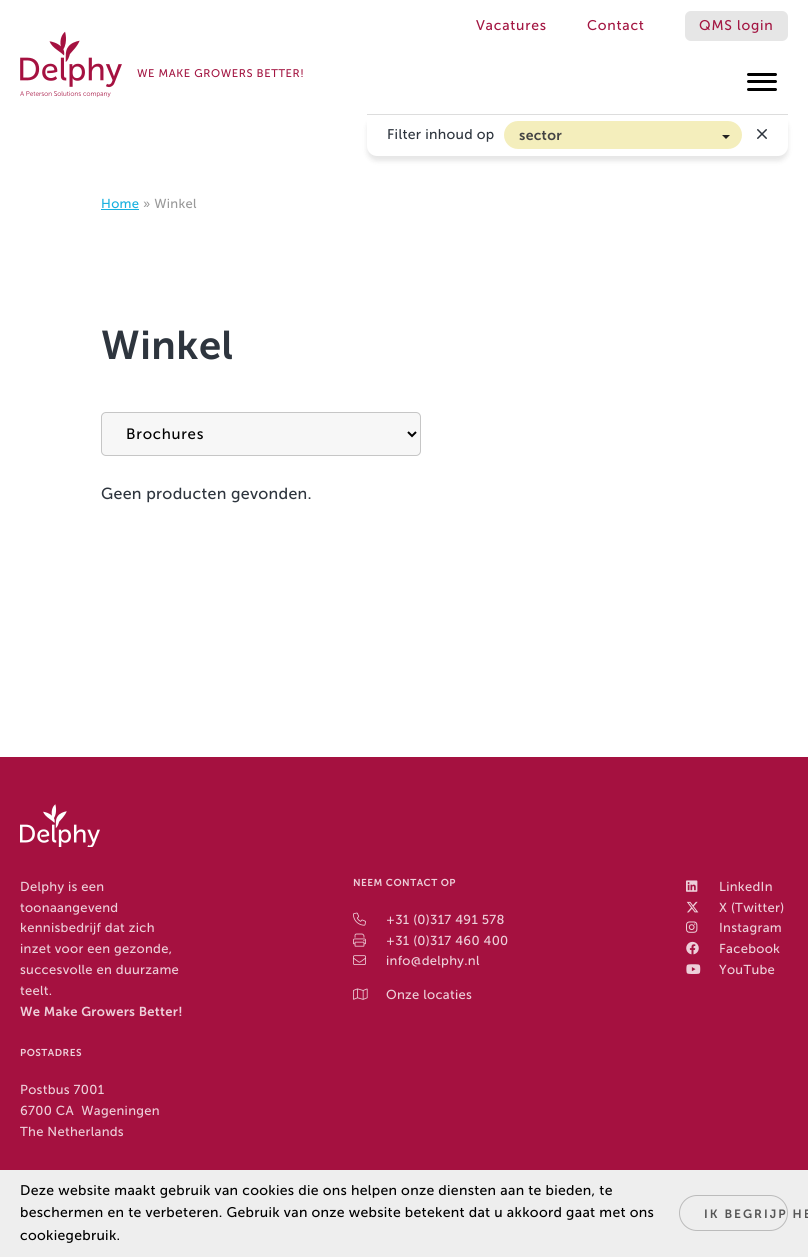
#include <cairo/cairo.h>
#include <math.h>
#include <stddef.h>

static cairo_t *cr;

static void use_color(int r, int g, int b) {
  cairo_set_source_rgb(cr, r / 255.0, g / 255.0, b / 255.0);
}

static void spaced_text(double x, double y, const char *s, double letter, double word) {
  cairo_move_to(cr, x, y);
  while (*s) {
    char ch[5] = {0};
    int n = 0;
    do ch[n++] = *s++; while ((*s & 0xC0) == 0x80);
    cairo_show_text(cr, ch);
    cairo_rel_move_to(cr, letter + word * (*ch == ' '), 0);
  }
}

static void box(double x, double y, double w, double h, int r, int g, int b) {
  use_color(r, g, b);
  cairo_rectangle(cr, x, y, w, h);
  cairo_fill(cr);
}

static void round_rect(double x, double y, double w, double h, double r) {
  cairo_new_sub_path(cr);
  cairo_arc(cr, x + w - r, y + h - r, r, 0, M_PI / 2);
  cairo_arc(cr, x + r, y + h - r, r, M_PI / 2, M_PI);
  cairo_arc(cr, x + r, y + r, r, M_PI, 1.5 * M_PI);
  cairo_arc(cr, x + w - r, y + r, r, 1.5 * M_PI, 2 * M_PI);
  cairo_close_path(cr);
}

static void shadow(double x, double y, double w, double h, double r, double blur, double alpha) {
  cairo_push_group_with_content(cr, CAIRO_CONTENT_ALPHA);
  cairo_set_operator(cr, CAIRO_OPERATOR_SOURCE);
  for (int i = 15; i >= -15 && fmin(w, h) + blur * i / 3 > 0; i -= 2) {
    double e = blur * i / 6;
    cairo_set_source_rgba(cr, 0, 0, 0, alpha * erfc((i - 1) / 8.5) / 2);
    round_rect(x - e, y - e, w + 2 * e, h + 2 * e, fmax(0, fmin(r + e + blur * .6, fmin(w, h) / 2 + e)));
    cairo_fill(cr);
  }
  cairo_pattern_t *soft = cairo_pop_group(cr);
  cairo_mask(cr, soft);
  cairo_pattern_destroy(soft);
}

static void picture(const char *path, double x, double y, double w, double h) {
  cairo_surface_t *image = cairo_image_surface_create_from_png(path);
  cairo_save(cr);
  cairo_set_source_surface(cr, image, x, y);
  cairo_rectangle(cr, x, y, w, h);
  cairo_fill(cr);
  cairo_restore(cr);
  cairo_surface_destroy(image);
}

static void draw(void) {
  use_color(255, 255, 255);
  cairo_paint(cr);
  use_color(230, 230, 230);
  round_rect(685, 11, 103, 30, 6);
  cairo_fill(cr);
  picture("img_01.png", 20, 31, 102, 67);
  use_color(0, 0, 0);
  round_rect(747, 73, 30, 3, 1.5);
  cairo_fill(cr);
  round_rect(747, 80, 30, 3, 1.5);
  cairo_fill(cr);
  round_rect(747, 88, 30, 3, 1.5);
  cairo_fill(cr);
  use_color(0, 0, 0);
  shadow(367, 119, 421, 42, 10, 2.5, 0.1);
  use_color(255, 255, 255);
  cairo_new_path(cr);
  cairo_move_to(cr, 367, 114);
  cairo_line_to(cr, 788, 114);
  cairo_line_to(cr, 788, 146);
  cairo_curve_to(cr, 788, 151.5, 783.5, 156, 778, 156);
  cairo_line_to(cr, 377, 156);
  cairo_curve_to(cr, 371.5, 156, 367, 151.5, 367, 146);
  cairo_close_path(cr);
  cairo_fill(cr);
  box(367, 114, 421, 1, 221, 221, 221);
  use_color(244, 238, 188);
  round_rect(504, 121, 238, 28, 14);
  cairo_fill(cr);
  use_color(34, 34, 34);
  cairo_new_path(cr);
  cairo_move_to(cr, 722, 135);
  cairo_line_to(cr, 730, 135);
  cairo_line_to(cr, 726, 139);
  cairo_close_path(cr);
  cairo_fill(cr);
  picture("img_02.png", 757, 129, 10, 10);
  box(101, 209, 38, 1, 23, 176, 223);
  use_color(247, 247, 247);
  round_rect(101, 412, 320, 44, 5);
  cairo_fill(cr);
  round_rect(101.5, 412.5, 319, 43, 4.5);
  cairo_set_source_rgba(cr, 0, 0, 0, 0.2);
  cairo_set_line_width(cr, 1);
  cairo_stroke(cr);
  cairo_new_path(cr);
  cairo_move_to(cr, 408, 432);
  cairo_line_to(cr, 412, 436);
  cairo_line_to(cr, 416, 432);
  use_color(0, 0, 0);
  cairo_set_line_width(cr, 2);
  cairo_stroke(cr);
  box(0, 757, 808, 413, 165, 17, 64);
  picture("img_03.png", 20, 804, 80, 43);
  picture("img_04.png", 353, 912, 13, 14);
  picture("img_05.png", 353, 933, 13, 14);
  picture("img_06.png", 353, 955, 13, 10);
  picture("img_07.png", 353, 988, 15, 12);
  picture("img_08.png", 686, 880, 12, 12);
  picture("img_09.png", 686, 901, 13, 12);
  picture("img_10.png", 686, 921, 12, 12);
  picture("img_11.png", 686, 941, 13, 14);
  picture("img_12.png", 686, 964, 15, 10);
  box(0, 1170, 808, 87, 238, 238, 238);
  round_rect(679.5, 1195.5, 108, 35, 17.5);
  use_color(187, 187, 187);
  cairo_set_line_width(cr, 1);
  cairo_stroke(cr);
  cairo_select_font_face(cr, "Museo Sans", CAIRO_FONT_SLANT_NORMAL, CAIRO_FONT_WEIGHT_NORMAL);
  cairo_set_font_size(cr, 14);
  use_color(163, 22, 66);
  spaced_text(476, 30, "Vacatures", 0.75, 0);
  spaced_text(587, 30, "Contact", 0.75, 0);
  spaced_text(699, 30, "QMS login", 0.75, 0);
  cairo_set_font_size(cr, 11.1);
  spaced_text(137, 77, "WE MAKE GROWERS BETTER!", 0.6, 0);
  cairo_set_font_size(cr, 14);
  use_color(46, 53, 62);
  spaced_text(387, 139, "Filter inhoud op", 0.3, 0);
  cairo_select_font_face(cr, "Museo Sans SemiBold", CAIRO_FONT_SLANT_NORMAL, CAIRO_FONT_WEIGHT_NORMAL);
  use_color(68, 68, 68);
  spaced_text(519, 140, "sector", 0.3, 0);
  cairo_select_font_face(cr, "Museo Sans", CAIRO_FONT_SLANT_NORMAL, CAIRO_FONT_WEIGHT_NORMAL);
  cairo_set_font_size(cr, 13);
  use_color(23, 176, 223);
  spaced_text(101, 208, "Home", 0.3, 0);
  use_color(153, 153, 153);
  spaced_text(143, 208, "» Winkel", 0.3, 0);
  cairo_select_font_face(cr, "Museo Sans SemiBold", CAIRO_FONT_SLANT_NORMAL, CAIRO_FONT_WEIGHT_NORMAL);
  cairo_set_font_size(cr, 40);
  use_color(46, 53, 62);
  spaced_text(101, 359, "Winkel", 0.5, 0);
  cairo_select_font_face(cr, "Museo Sans", CAIRO_FONT_SLANT_NORMAL, CAIRO_FONT_WEIGHT_NORMAL);
  cairo_set_font_size(cr, 15);
  use_color(0, 0, 0);
  spaced_text(126, 439, "Brochures", 0.75, 0);
  cairo_set_font_size(cr, 16);
  use_color(46, 53, 62);
  spaced_text(101, 499, "Geen producten gevonden.", 0.3, 0);
  cairo_set_font_size(cr, 13);
  use_color(237, 207, 217);
  spaced_text(20, 891, "Delphy is een", 0.3, 0);
  spaced_text(20, 912, "toonaangevend", 0.3, 0);
  spaced_text(20, 932, "kennisbedrijf dat zich", 0.3, 0);
  spaced_text(20, 953, "inzet voor een gezonde,", 0.3, 0);
  spaced_text(20, 974, "succesvolle en duurzame", 0.3, 0);
  spaced_text(20, 995, "teelt.", 0.3, 0);
  cairo_select_font_face(cr, "Museo Sans SemiBold", CAIRO_FONT_SLANT_NORMAL, CAIRO_FONT_WEIGHT_NORMAL);
  spaced_text(20, 1016, "We Make Growers Better!", 0.3, 0);
  cairo_set_font_size(cr, 10);
  spaced_text(20, 1056, "POSTADRES", 0.5, 0);
  cairo_select_font_face(cr, "Museo Sans", CAIRO_FONT_SLANT_NORMAL, CAIRO_FONT_WEIGHT_NORMAL);
  cairo_set_font_size(cr, 13);
  spaced_text(20, 1094, "Postbus 7001", 0.3, 0);
  spaced_text(20, 1115, "6700 CA  Wageningen", 0.3, 0);
  spaced_text(20, 1136, "The Netherlands", 0.3, 0);
  cairo_select_font_face(cr, "Museo Sans SemiBold", CAIRO_FONT_SLANT_NORMAL, CAIRO_FONT_WEIGHT_NORMAL);
  cairo_set_font_size(cr, 10);
  spaced_text(353, 886, "NEEM CONTACT OP", 0.5, 0);
  cairo_select_font_face(cr, "Museo Sans", CAIRO_FONT_SLANT_NORMAL, CAIRO_FONT_WEIGHT_NORMAL);
  cairo_set_font_size(cr, 13);
  spaced_text(386, 924, "+31 (0)317 491 578", 0.3, 0);
  spaced_text(386, 945, "+31 (0)317 460 400", 0.3, 0);
  spaced_text(386, 965, "info@delphy.nl", 0.3, 0);
  spaced_text(386, 999, "Onze locaties", 0.3, 0);
  spaced_text(719, 891, "LinkedIn", 0.3, 0);
  spaced_text(719, 912, "X (Twitter)", 0.3, 0);
  spaced_text(719, 932, "Instagram", 0.3, 0);
  spaced_text(719, 953, "Facebook", 0.3, 0);
  spaced_text(719, 974, "YouTube", 0.3, 0);
  cairo_set_font_size(cr, 14);
  use_color(0, 0, 0);
  spaced_text(20, 1195, "Deze website maakt gebruik van cookies die ons helpen onze diensten aan te bieden, te", 0.3, 0);
  spaced_text(20, 1217, "beschermen en te verbeteren. Gebruik van onze website betekent dat u akkoord gaat met ons", 0.3, 0);
  spaced_text(20, 1240, "cookiegebruik.", 0.3, 0);
  cairo_select_font_face(cr, "Museo Sans SemiBold", CAIRO_FONT_SLANT_NORMAL, CAIRO_FONT_WEIGHT_NORMAL);
  cairo_set_font_size(cr, 12);
  use_color(85, 85, 85);
  spaced_text(704, 1218, "IK BEGRIJP HE", 2, 0);
}

int main(void) {
  cairo_surface_t *surface = cairo_image_surface_create(CAIRO_FORMAT_RGB24, 808, 1257);
  cr = cairo_create(surface);
  cairo_font_options_t *options = cairo_font_options_create();
  cairo_font_options_set_hint_metrics(options, CAIRO_HINT_METRICS_OFF);
  cairo_font_options_set_hint_style(options, CAIRO_HINT_STYLE_NONE);
  cairo_set_font_options(cr, options);
  cairo_set_miter_limit(cr, 4);
  draw();
  cairo_surface_write_to_png(surface, "out.png");
  cairo_font_options_destroy(options);
  cairo_destroy(cr);
  cairo_surface_destroy(surface);
  return 0;
}
